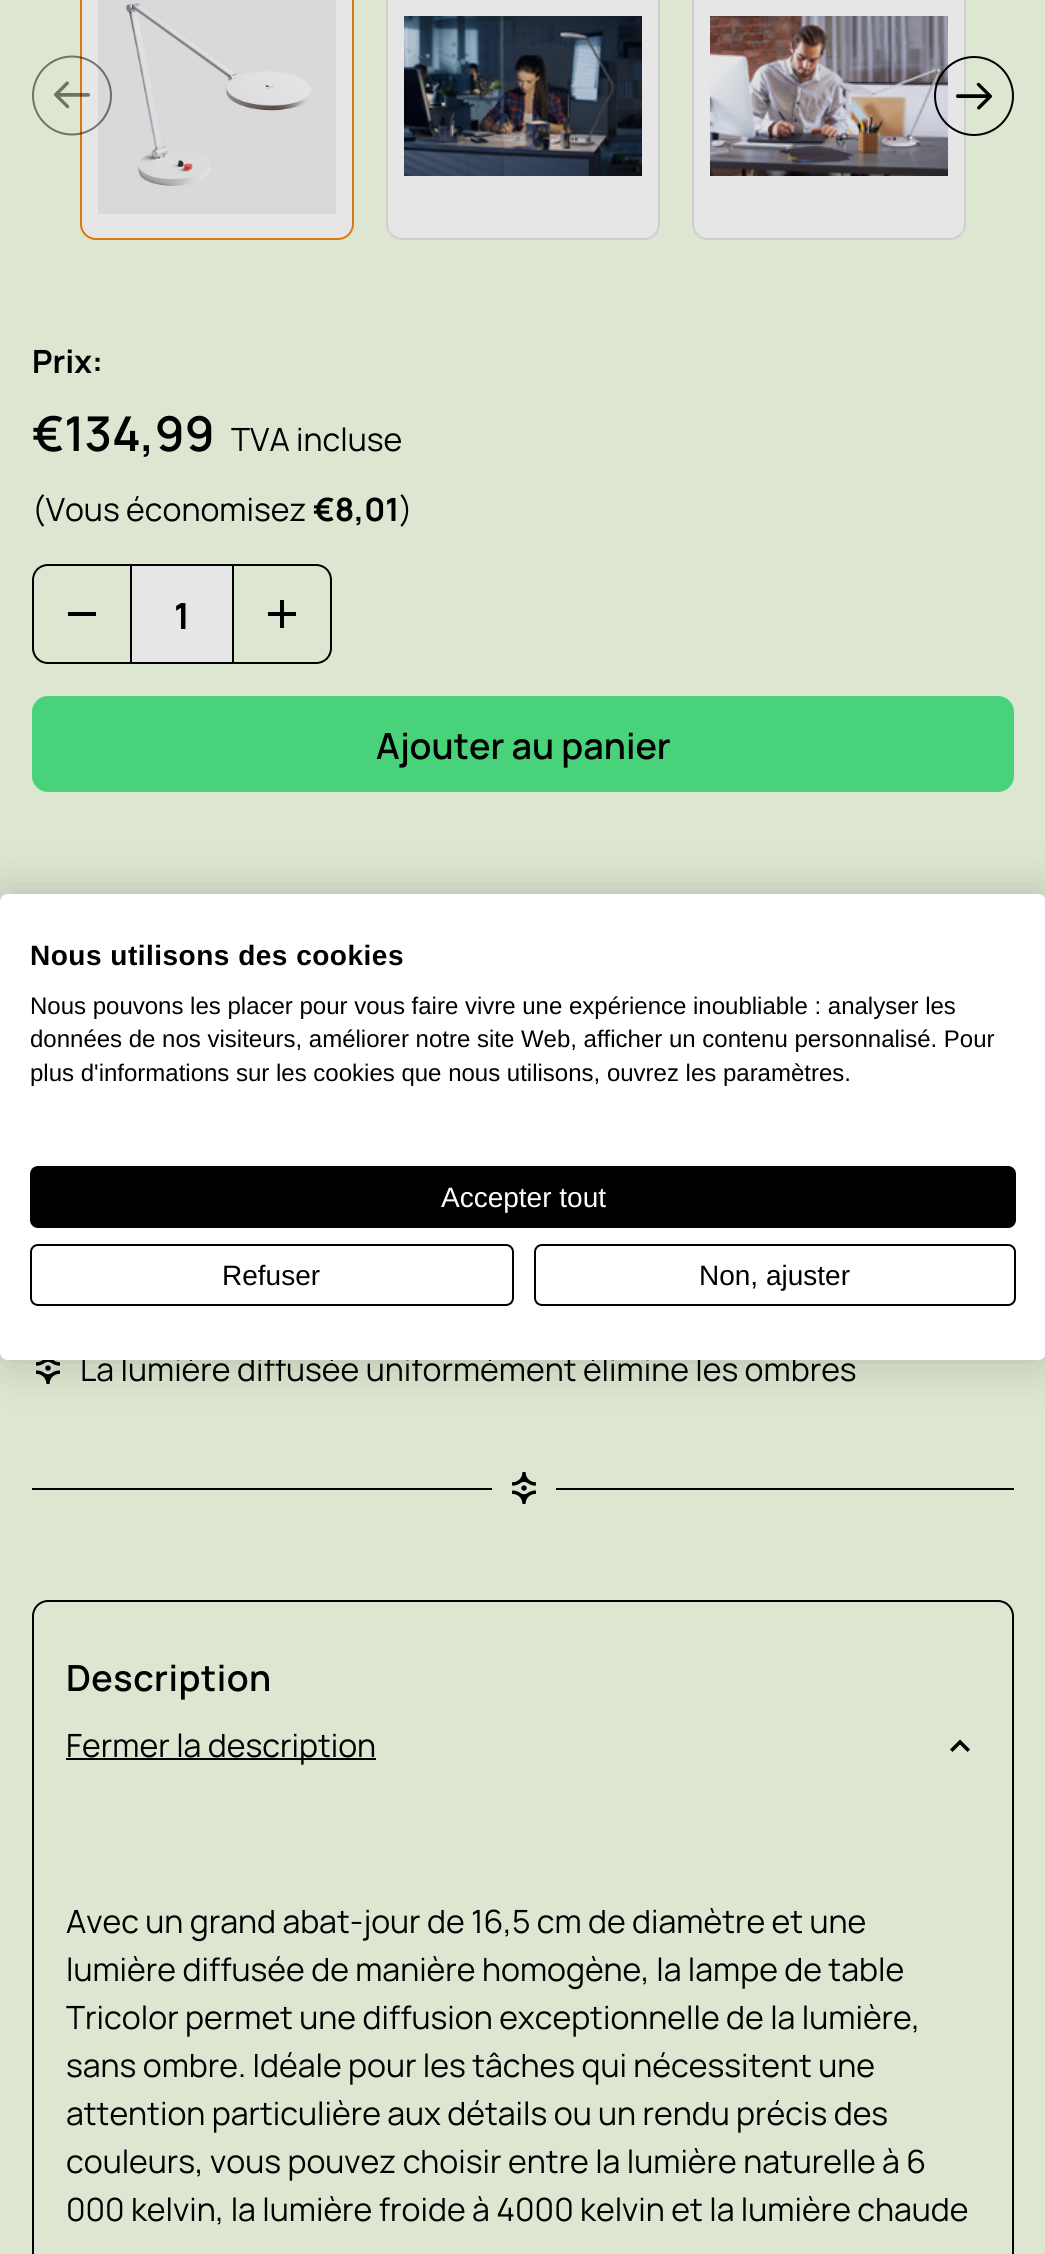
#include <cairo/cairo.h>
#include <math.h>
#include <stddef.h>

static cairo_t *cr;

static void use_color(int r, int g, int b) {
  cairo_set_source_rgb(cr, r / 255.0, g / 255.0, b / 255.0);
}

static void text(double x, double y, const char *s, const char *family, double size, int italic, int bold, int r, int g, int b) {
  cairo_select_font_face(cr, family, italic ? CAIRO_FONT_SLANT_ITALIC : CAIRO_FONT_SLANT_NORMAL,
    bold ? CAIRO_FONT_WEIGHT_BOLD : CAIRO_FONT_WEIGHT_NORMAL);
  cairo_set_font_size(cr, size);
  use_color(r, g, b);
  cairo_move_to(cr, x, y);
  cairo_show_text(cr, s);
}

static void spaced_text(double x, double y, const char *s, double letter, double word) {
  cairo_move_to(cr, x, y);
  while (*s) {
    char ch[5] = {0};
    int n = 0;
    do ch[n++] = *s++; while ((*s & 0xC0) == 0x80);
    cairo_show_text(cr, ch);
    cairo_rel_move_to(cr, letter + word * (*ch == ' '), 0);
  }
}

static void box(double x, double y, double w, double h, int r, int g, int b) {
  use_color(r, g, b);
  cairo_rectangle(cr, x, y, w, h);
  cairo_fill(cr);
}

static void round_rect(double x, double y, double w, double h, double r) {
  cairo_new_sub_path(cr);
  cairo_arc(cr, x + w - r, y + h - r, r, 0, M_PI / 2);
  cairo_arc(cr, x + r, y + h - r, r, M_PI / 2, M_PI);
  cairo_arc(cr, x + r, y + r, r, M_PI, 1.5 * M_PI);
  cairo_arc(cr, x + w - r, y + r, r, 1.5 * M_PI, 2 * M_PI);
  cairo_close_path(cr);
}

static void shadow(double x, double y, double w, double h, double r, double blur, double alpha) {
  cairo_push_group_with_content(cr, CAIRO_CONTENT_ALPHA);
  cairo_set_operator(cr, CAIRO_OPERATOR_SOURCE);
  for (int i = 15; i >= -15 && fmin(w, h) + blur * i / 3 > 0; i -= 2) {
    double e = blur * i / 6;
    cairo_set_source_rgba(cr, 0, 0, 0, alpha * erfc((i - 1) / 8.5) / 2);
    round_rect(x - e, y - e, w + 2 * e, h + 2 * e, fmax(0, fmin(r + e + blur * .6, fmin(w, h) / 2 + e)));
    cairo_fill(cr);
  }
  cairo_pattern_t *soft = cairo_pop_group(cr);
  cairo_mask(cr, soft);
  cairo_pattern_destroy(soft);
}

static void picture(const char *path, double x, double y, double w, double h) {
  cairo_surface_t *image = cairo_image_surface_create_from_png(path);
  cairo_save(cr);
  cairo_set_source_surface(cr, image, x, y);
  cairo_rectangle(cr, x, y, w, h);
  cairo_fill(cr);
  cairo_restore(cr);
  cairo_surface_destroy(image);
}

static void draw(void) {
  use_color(221, 230, 209);
  cairo_paint(cr);
  use_color(230, 230, 230);
  round_rect(81, -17, 272, 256, 15);
  cairo_fill_preserve(cr);
  use_color(220, 120, 18);
  cairo_stroke(cr);
  picture("img_02.png", 98, 0, 238, 214);
  cairo_new_path(cr);
  cairo_move_to(cr, 72, 134.5);
  cairo_curve_to(cr, 50.5, 134.5, 33, 117, 33, 95.5);
  cairo_curve_to(cr, 33, 74, 50.5, 56.5, 72, 56.5);
  cairo_curve_to(cr, 93.5, 56.5, 111, 74, 111, 95.5);
  cairo_curve_to(cr, 111, 117, 93.5, 134.5, 72, 134.5);
  cairo_close_path(cr);
  cairo_set_source_rgba(cr, 0, 0, 0, 0.5);
  cairo_stroke(cr);
  picture("img_01.png", 54, 81, 36, 28);
  use_color(230, 230, 230);
  round_rect(387, -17, 272, 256, 15);
  cairo_fill_preserve(cr);
  use_color(206, 206, 206);
  cairo_stroke(cr);
  picture("img_03.png", 404, 16, 238, 160);
  use_color(230, 230, 230);
  round_rect(693, -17, 272, 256, 15);
  cairo_fill_preserve(cr);
  use_color(206, 206, 206);
  cairo_stroke(cr);
  picture("img_04.png", 710, 16, 238, 160);
  cairo_arc(cr, 974, 96, 39, 0, 2 * M_PI);
  use_color(0, 0, 0);
  cairo_stroke(cr);
  picture("img_05.png", 956, 82, 36, 28);
  cairo_new_path(cr);
  cairo_move_to(cr, 48, 565);
  cairo_line_to(cr, 131, 565);
  cairo_line_to(cr, 131, 663);
  cairo_line_to(cr, 48, 663);
  cairo_curve_to(cr, 39.5, 663, 33, 656.5, 33, 648);
  cairo_line_to(cr, 33, 580);
  cairo_curve_to(cr, 33, 571.5, 39.5, 565, 48, 565);
  cairo_close_path(cr);
  cairo_stroke(cr);
  box(68, 612, 28, 4, 0, 0, 0);
  box(132, 566, 100, 96, 230, 230, 230);
  box(132, 564, 100, 2, 0, 0, 0);
  box(132, 662, 100, 2, 0, 0, 0);
  cairo_new_path(cr);
  cairo_move_to(cr, 233, 565);
  cairo_line_to(cr, 316, 565);
  cairo_curve_to(cr, 324.5, 565, 331, 571.5, 331, 580);
  cairo_line_to(cr, 331, 648);
  cairo_curve_to(cr, 331, 656.5, 324.5, 663, 316, 663);
  cairo_line_to(cr, 233, 663);
  cairo_close_path(cr);
  cairo_stroke(cr);
  picture("img_06.png", 268, 600, 28, 28);
  use_color(72, 211, 122);
  round_rect(32, 696, 982, 96, 16);
  cairo_fill(cr);
  picture("img_07.png", 36, 1360, 24, 24);
  box(32, 1488, 460, 2, 0, 0, 0);
  picture("img_08.png", 512, 1472, 24, 32);
  box(556, 1488, 458, 2, 0, 0, 0);
  round_rect(33, 1601, 980, 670, 15);
  cairo_stroke(cr);
  box(66, 1758, 310, 2, 0, 0, 0);
  cairo_new_path(cr);
  cairo_move_to(cr, 967.5, 1752);
  cairo_line_to(cr, 960, 1744.5);
  cairo_line_to(cr, 952.5, 1752);
  cairo_line_to(cr, 950, 1749.5);
  cairo_line_to(cr, 960, 1739.5);
  cairo_line_to(cr, 970, 1749.5);
  cairo_close_path(cr);
  cairo_fill(cr);
  use_color(0, 0, 0);
  shadow(0, 894, 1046, 466, 8, 24, 0.2);
  text(32, 373, "Prix:", "Manrope", 32, 0, 1, 0, 0, 0);
  text(32, 451, "€134,99", "Manrope SemiBold", 48, 0, 0, 0, 0, 0);
  text(231, 451, "TVA incluse", "Manrope", 32, 0, 0, 0, 0, 0);
  text(32, 521, "(Vous économisez", "Manrope", 32, 0, 0, 0, 0, 0);
  text(313, 521, "€8,01", "Manrope", 32, 0, 1, 0, 0, 0);
  text(399, 521, ")", "Manrope", 32, 0, 0, 0, 0, 0);
  text(174, 629, "1", "Manrope", 36, 0, 1, 0, 0, 0);
  text(376, 759, "Ajouter au panier", "Manrope SemiBold", 36, 0, 0, 0, 0, 0);
  text(80, 1381, "La lumière diffusée uniformément élimine les ombres", "Manrope", 32, 0, 0, 0, 0, 0);
  cairo_select_font_face(cr, "Manrope SemiBold", CAIRO_FONT_SLANT_NORMAL, CAIRO_FONT_WEIGHT_NORMAL);
  cairo_set_font_size(cr, 36);
  spaced_text(66, 1691, "Description", 0.5, 0);
  text(66, 1757, "Fermer la description", "Manrope", 32, 0, 0, 0, 0, 0);
  text(66, 1933, "Avec un grand abat-jour de 16,5 cm de diamètre et une", "Manrope", 32, 0, 0, 0, 0, 0);
  text(66, 1981, "lumière diffusée de manière homogène, la lampe de table", "Manrope", 32, 0, 0, 0, 0, 0);
  text(66, 2029, "Tricolor permet une diffusion exceptionnelle de la lumière,", "Manrope", 32, 0, 0, 0, 0, 0);
  text(66, 2077, "sans ombre. Idéale pour les tâches qui nécessitent une", "Manrope", 32, 0, 0, 0, 0, 0);
  text(66, 2125, "attention particulière aux détails ou un rendu précis des", "Manrope", 32, 0, 0, 0, 0, 0);
  text(66, 2173, "couleurs, vous pouvez choisir entre la lumière naturelle à 6", "Manrope", 32, 0, 0, 0, 0, 0);
  text(66, 2221, "000 kelvin, la lumière froide à 4000 kelvin et la lumière chaude", "Manrope", 32, 0, 0, 0, 0, 0);
  use_color(255, 255, 255);
  round_rect(0, 894, 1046, 466, 8);
  cairo_fill(cr);
  cairo_select_font_face(cr, "Liberation Sans", CAIRO_FONT_SLANT_NORMAL, CAIRO_FONT_WEIGHT_BOLD);
  cairo_set_font_size(cr, 28);
  use_color(0, 0, 0);
  spaced_text(30, 965, "Nous utilisons des cookies", 0.5, 0);
  text(30, 1014, "Nous pouvons les placer pour vous faire vivre une expérience inoubliable : analyser les", "Liberation Sans", 24, 0, 0, 0, 0, 0);
  text(30, 1047, "données de nos visiteurs, améliorer notre site Web, afficher un contenu personnalisé. Pour", "Liberation Sans", 24, 0, 0, 0, 0, 0);
  text(30, 1081, "plus d'informations sur les cookies que nous utilisons, ouvrez les paramètres.", "Liberation Sans", 24, 0, 0, 0, 0, 0);
  round_rect(31, 1167, 984, 60, 7);
  cairo_fill_preserve(cr);
  cairo_stroke(cr);
  text(441, 1207, "Accepter tout", "Liberation Sans", 28, 0, 0, 255, 255, 255);
  round_rect(31, 1245, 482, 60, 7);
  use_color(0, 0, 0);
  cairo_stroke(cr);
  text(222, 1285, "Refuser", "Liberation Sans", 28, 0, 0, 0, 0, 0);
  round_rect(535, 1245, 480, 60, 7);
  cairo_stroke(cr);
  text(699, 1285, "Non, ajuster", "Liberation Sans", 28, 0, 0, 0, 0, 0);
}

int main(void) {
  cairo_surface_t *surface = cairo_image_surface_create(CAIRO_FORMAT_RGB24, 1045, 2254);
  cr = cairo_create(surface);
  cairo_font_options_t *options = cairo_font_options_create();
  cairo_font_options_set_hint_metrics(options, CAIRO_HINT_METRICS_OFF);
  cairo_font_options_set_hint_style(options, CAIRO_HINT_STYLE_NONE);
  cairo_set_font_options(cr, options);
  cairo_set_miter_limit(cr, 4);
  draw();
  cairo_surface_write_to_png(surface, "out.png");
  cairo_font_options_destroy(options);
  cairo_destroy(cr);
  cairo_surface_destroy(surface);
  return 0;
}
